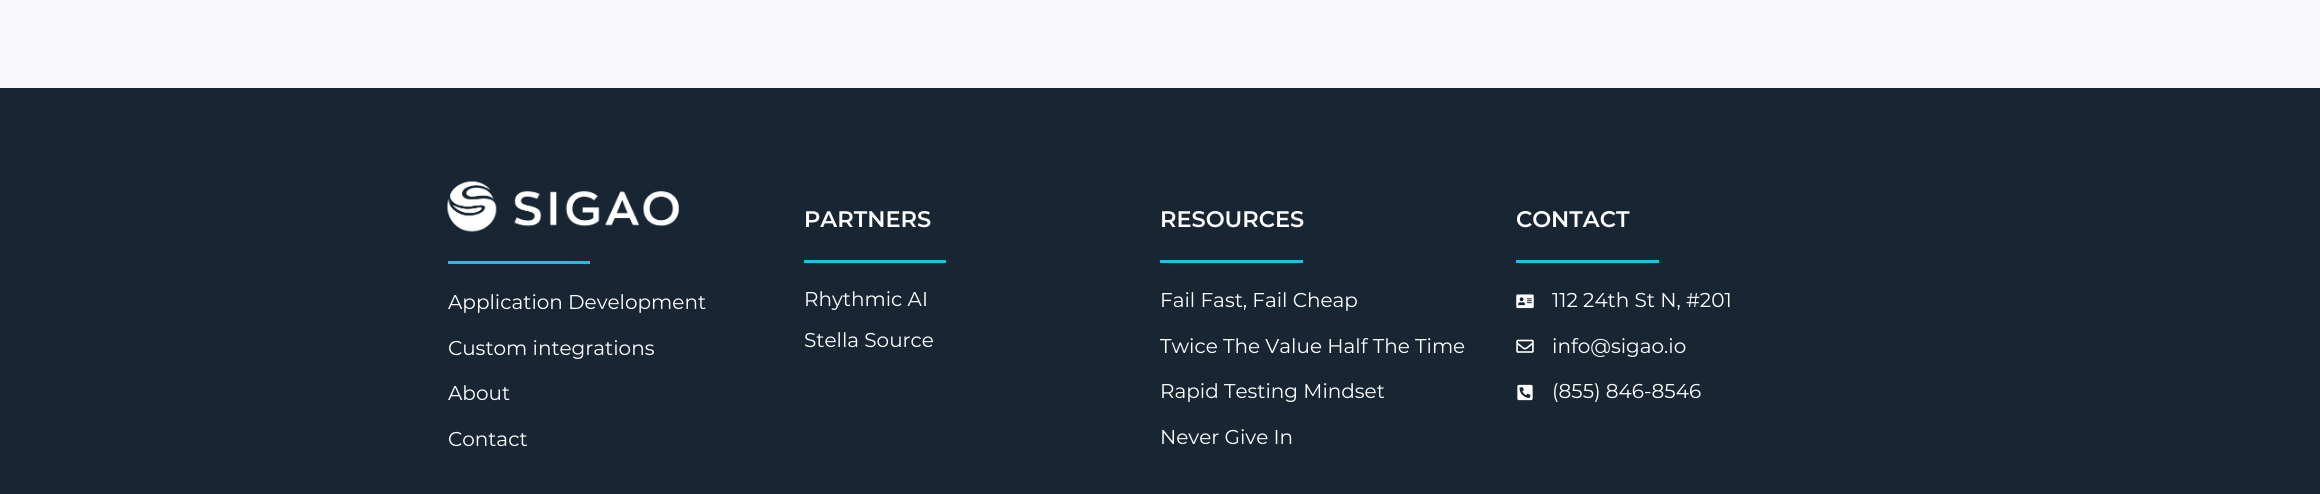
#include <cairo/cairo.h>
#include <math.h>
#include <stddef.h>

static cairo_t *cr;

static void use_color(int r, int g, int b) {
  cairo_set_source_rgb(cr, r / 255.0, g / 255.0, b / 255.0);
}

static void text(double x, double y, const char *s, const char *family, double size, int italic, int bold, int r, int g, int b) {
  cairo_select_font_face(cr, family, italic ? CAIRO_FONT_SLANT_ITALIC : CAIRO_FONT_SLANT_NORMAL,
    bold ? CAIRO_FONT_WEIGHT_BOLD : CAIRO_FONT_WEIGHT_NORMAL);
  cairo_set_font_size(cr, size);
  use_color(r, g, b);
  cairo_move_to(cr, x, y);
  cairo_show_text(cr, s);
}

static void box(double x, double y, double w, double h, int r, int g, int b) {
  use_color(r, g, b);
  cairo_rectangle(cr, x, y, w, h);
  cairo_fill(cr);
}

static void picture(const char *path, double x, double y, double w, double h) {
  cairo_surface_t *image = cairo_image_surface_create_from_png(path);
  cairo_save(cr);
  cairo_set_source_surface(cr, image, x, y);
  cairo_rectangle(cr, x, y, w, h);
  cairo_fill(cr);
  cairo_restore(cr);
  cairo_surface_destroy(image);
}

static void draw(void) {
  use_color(249, 249, 253);
  cairo_paint(cr);
  box(0, 88, 2320, 406, 24, 38, 51);
  picture("img_01.png", 447, 181, 232, 51);
  box(448, 261, 142, 3, 15, 200, 229);
  box(804, 260, 142, 3, 15, 200, 229);
  box(1160, 260, 143, 3, 15, 200, 229);
  box(1516, 260, 143, 3, 15, 200, 229);
  picture("img_02.png", 1516, 294, 18, 15);
  picture("img_03.png", 1516, 339, 18, 14);
  picture("img_04.png", 1517, 384, 16, 17);
  text(448, 309, "Application Development", "Montserrat", 20, 0, 0, 255, 255, 255);
  text(448, 355, "Custom integrations", "Montserrat", 20, 0, 0, 255, 255, 255);
  text(448, 400, "About", "Montserrat", 20, 0, 0, 255, 255, 255);
  text(448, 446, "Contact", "Montserrat", 20, 0, 0, 255, 255, 255);
  text(804, 227, "PARTNERS", "Montserrat SemiBold", 22.5, 0, 0, 255, 255, 255);
  text(804, 306, "Rhythmic AI", "Montserrat", 20, 0, 0, 255, 255, 255);
  text(804, 347, "Stella Source", "Montserrat", 20, 0, 0, 255, 255, 255);
  text(1160, 227, "RESOURCES", "Montserrat SemiBold", 22.5, 0, 0, 255, 255, 255);
  text(1160, 307, "Fail Fast, Fail Cheap", "Montserrat", 20, 0, 0, 255, 255, 255);
  text(1160, 353, "Twice The Value Half The Time", "Montserrat", 20, 0, 0, 255, 255, 255);
  text(1160, 398, "Rapid Testing Mindset", "Montserrat", 20, 0, 0, 255, 255, 255);
  text(1160, 444, "Never Give In", "Montserrat", 20, 0, 0, 255, 255, 255);
  text(1516, 227, "CONTACT", "Montserrat SemiBold", 22.5, 0, 0, 255, 255, 255);
  text(1552, 307, "112 24th St N, #201", "Montserrat", 20, 0, 0, 255, 255, 255);
  text(1552, 353, "info@sigao.io", "Montserrat", 20, 0, 0, 255, 255, 255);
  text(1552, 398, "(855) 846-8546", "Montserrat", 20, 0, 0, 255, 255, 255);
}

int main(void) {
  cairo_surface_t *surface = cairo_image_surface_create(CAIRO_FORMAT_RGB24, 2320, 494);
  cr = cairo_create(surface);
  cairo_font_options_t *options = cairo_font_options_create();
  cairo_font_options_set_hint_metrics(options, CAIRO_HINT_METRICS_OFF);
  cairo_font_options_set_hint_style(options, CAIRO_HINT_STYLE_NONE);
  cairo_set_font_options(cr, options);
  cairo_set_miter_limit(cr, 4);
  draw();
  cairo_surface_write_to_png(surface, "out.png");
  cairo_font_options_destroy(options);
  cairo_destroy(cr);
  cairo_surface_destroy(surface);
  return 0;
}
